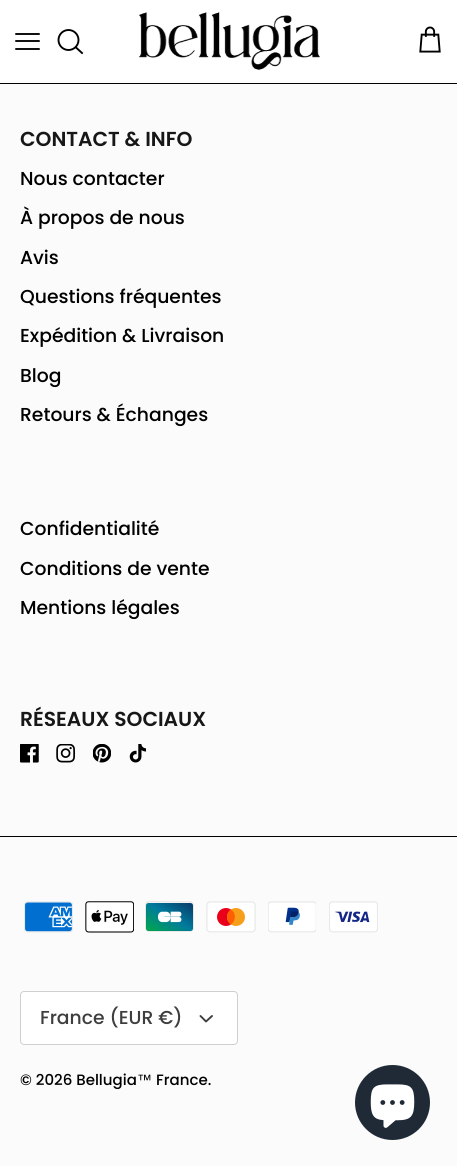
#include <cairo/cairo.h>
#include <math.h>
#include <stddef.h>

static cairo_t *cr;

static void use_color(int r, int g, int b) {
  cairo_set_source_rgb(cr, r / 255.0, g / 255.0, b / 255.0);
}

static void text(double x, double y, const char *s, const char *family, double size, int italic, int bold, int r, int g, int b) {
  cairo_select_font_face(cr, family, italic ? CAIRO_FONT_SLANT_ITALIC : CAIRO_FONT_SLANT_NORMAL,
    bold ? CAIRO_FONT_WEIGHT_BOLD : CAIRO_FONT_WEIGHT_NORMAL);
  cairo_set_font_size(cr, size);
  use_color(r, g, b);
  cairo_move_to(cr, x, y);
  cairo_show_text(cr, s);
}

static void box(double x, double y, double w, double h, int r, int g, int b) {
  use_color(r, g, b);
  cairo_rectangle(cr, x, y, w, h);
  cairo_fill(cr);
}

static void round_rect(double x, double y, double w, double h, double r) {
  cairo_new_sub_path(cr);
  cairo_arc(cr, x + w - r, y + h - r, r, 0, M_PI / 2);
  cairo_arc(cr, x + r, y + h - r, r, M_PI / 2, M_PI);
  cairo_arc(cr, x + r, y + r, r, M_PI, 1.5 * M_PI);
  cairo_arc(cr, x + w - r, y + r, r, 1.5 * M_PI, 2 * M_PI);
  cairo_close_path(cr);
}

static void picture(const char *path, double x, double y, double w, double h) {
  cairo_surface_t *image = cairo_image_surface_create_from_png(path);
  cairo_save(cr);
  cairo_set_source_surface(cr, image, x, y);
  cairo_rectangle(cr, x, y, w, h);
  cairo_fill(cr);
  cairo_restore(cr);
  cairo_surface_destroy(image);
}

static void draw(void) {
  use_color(251, 251, 251);
  cairo_paint(cr);
  box(0, 0, 457, 83, 255, 255, 255);
  box(0, 83, 457, 1, 0, 0, 0);
  cairo_new_path(cr);
  cairo_move_to(cr, 16, 41);
  cairo_line_to(cr, 39, 41);
  cairo_move_to(cr, 16, 34);
  cairo_line_to(cr, 39, 34);
  cairo_move_to(cr, 16, 49);
  cairo_line_to(cr, 39, 49);
  cairo_set_line_width(cr, 1.9);
  cairo_set_line_cap(cr, CAIRO_LINE_CAP_ROUND);
  cairo_set_line_join(cr, CAIRO_LINE_JOIN_ROUND);
  cairo_stroke(cr);
  cairo_arc(cr, 68.5, 40, 10, 0, 2 * M_PI);
  cairo_set_line_cap(cr, CAIRO_LINE_CAP_BUTT);
  cairo_set_line_join(cr, CAIRO_LINE_JOIN_MITER);
  cairo_stroke(cr);
  cairo_new_path(cr);
  cairo_move_to(cr, 76, 47.5);
  cairo_line_to(cr, 82, 53);
  cairo_set_line_cap(cr, CAIRO_LINE_CAP_SQUARE);
  cairo_stroke(cr);
  picture("img_01.png", 139, 12, 181, 58);
  picture("img_02.png", 419, 26, 22, 27);
  picture("img_03.png", 20, 744, 19, 19);
  picture("img_04.png", 56, 744, 19, 19);
  picture("img_05.png", 93, 744, 18, 19);
  picture("img_06.png", 129, 744, 18, 19);
  box(0, 836, 457, 1, 0, 0, 0);
  picture("img_07.png", 24, 901, 49, 32);
  picture("img_08.png", 85, 901, 49, 32);
  picture("img_09.png", 145, 901, 49, 31);
  picture("img_10.png", 206, 901, 50, 32);
  picture("img_11.png", 268, 901, 48, 32);
  picture("img_12.png", 329, 901, 49, 32);
  use_color(255, 255, 255);
  round_rect(20.5, 991.5, 217, 53, 3.5);
  cairo_fill_preserve(cr);
  use_color(207, 207, 207);
  cairo_set_line_width(cr, 1);
  cairo_set_line_cap(cr, CAIRO_LINE_CAP_BUTT);
  cairo_stroke(cr);
  cairo_new_path(cr);
  cairo_move_to(cr, 200.5, 1016);
  cairo_line_to(cr, 206, 1021.5);
  cairo_line_to(cr, 212, 1016);
  use_color(62, 62, 62);
  cairo_set_line_width(cr, 1.9);
  cairo_set_line_cap(cr, CAIRO_LINE_CAP_ROUND);
  cairo_set_line_join(cr, CAIRO_LINE_JOIN_ROUND);
  cairo_stroke(cr);
  use_color(32, 42, 54);
  cairo_arc(cr, 392.5, 1102.5, 37.5, 0, 2 * M_PI);
  cairo_fill(cr);
  picture("img_13.png", 370, 1084, 45, 44);
  text(20, 146, "CONTACT & INFO", "Poppins SemiBold", 20.25, 0, 0, 23, 23, 23);
  text(20, 185, "Nous contacter", "Poppins Medium", 18.75, 0, 0, 0, 0, 0);
  text(20, 224, "À propos de nous", "Poppins Medium", 18.75, 0, 0, 0, 0, 0);
  text(20, 264, "Avis", "Poppins Medium", 18.75, 0, 0, 0, 0, 0);
  text(20, 303, "Questions fréquentes", "Poppins Medium", 18.75, 0, 0, 0, 0, 0);
  text(20, 342, "Expédition & Livraison", "Poppins Medium", 18.75, 0, 0, 0, 0, 0);
  text(20, 382, "Blog", "Poppins Medium", 18.75, 0, 0, 0, 0, 0);
  text(20, 421, "Retours & Échanges", "Poppins Medium", 18.75, 0, 0, 0, 0, 0);
  text(20, 535, "Confidentialité", "Poppins Medium", 18.75, 0, 0, 0, 0, 0);
  text(20, 575, "Conditions de vente", "Poppins Medium", 18.75, 0, 0, 0, 0, 0);
  text(20, 614, "Mentions légales", "Poppins Medium", 18.75, 0, 0, 0, 0, 0);
  text(20, 726, "RÉSEAUX SOCIAUX", "Poppins SemiBold", 20.25, 0, 0, 23, 23, 23);
  text(40, 1024, "France (EUR €)", "Poppins Medium", 18.75, 0, 0, 62, 62, 62);
  text(20, 1085, "© 2026 Bellugia", "Poppins Medium", 15, 0, 0, 0, 0, 0);
  text(137, 1085, "™", "Liberation Sans", 15, 0, 0, 0, 0, 0);
  text(156, 1085, "France.", "Poppins Medium", 15, 0, 0, 0, 0, 0);
}

int main(void) {
  cairo_surface_t *surface = cairo_image_surface_create(CAIRO_FORMAT_RGB24, 457, 1166);
  cr = cairo_create(surface);
  cairo_font_options_t *options = cairo_font_options_create();
  cairo_font_options_set_hint_metrics(options, CAIRO_HINT_METRICS_OFF);
  cairo_font_options_set_hint_style(options, CAIRO_HINT_STYLE_NONE);
  cairo_set_font_options(cr, options);
  cairo_set_miter_limit(cr, 4);
  draw();
  cairo_surface_write_to_png(surface, "out.png");
  cairo_font_options_destroy(options);
  cairo_destroy(cr);
  cairo_surface_destroy(surface);
  return 0;
}
